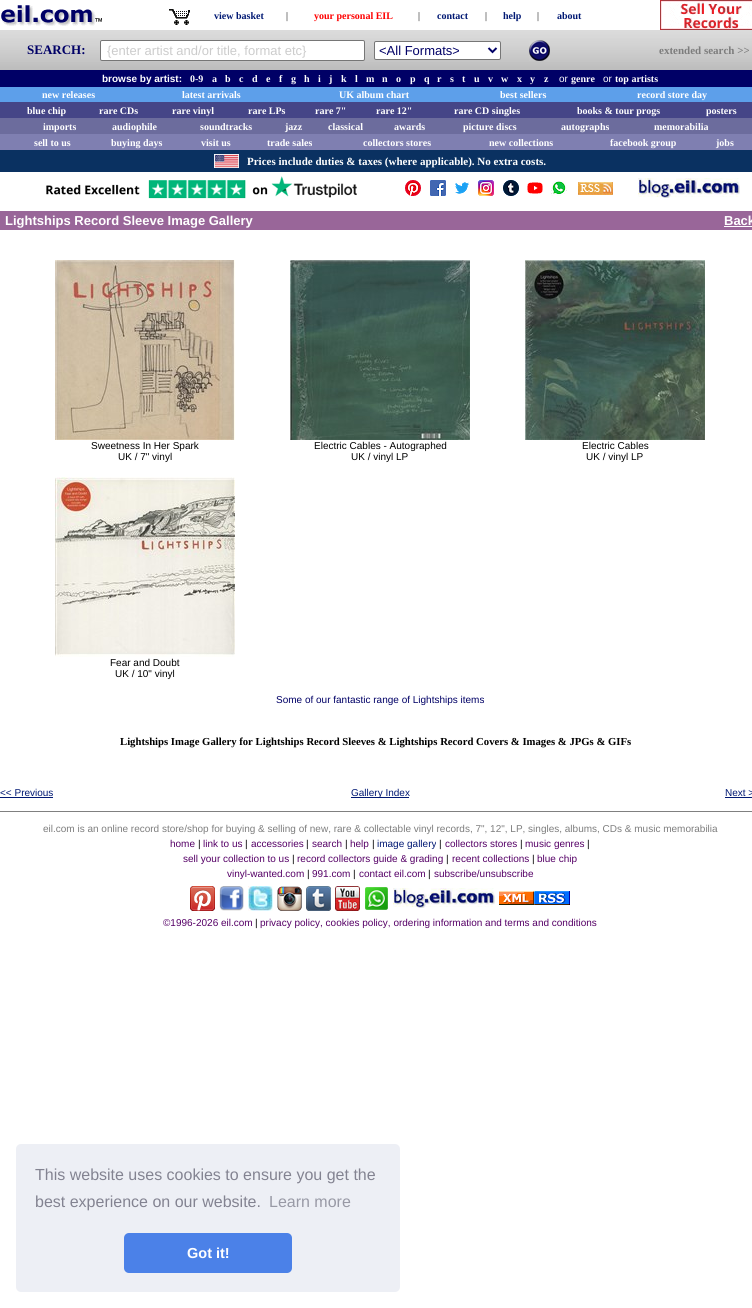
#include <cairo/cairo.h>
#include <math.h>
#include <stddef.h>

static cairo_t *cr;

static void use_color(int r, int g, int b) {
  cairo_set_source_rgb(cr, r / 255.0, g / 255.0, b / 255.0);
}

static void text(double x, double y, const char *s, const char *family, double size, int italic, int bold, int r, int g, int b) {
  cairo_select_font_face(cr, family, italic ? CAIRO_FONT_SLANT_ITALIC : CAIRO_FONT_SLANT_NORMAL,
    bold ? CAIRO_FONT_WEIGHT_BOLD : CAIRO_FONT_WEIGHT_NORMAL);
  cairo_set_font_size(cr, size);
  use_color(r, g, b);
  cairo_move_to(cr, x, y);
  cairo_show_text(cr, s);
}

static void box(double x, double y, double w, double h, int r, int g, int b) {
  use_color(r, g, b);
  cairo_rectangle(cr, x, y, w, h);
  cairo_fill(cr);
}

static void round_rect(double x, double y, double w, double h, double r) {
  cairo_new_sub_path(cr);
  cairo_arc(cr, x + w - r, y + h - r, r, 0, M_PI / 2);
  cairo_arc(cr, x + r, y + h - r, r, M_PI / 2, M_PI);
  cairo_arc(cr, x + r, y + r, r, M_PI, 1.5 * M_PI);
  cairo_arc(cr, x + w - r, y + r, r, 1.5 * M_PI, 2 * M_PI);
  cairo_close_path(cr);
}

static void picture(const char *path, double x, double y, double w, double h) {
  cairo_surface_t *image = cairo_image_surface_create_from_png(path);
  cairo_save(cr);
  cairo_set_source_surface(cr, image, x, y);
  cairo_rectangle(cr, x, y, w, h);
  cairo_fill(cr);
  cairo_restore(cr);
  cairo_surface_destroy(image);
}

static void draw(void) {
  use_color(255, 255, 255);
  cairo_paint(cr);
  picture("img_01.png", 1, 5, 101, 21);
  picture("img_02.png", 169, 9, 21, 16);
  picture("img_03.png", 660, 0, 92, 30);
  picture("img_04.png", 0, 30, 752, 40);
  use_color(255, 255, 255);
  round_rect(100.5, 40.5, 264, 20, 1.5);
  cairo_fill_preserve(cr);
  use_color(118, 118, 118);
  cairo_set_line_width(cr, 1);
  cairo_stroke(cr);
  use_color(255, 255, 255);
  round_rect(374.5, 41.5, 126, 18, 1.5);
  cairo_fill_preserve(cr);
  use_color(118, 118, 118);
  cairo_stroke(cr);
  cairo_new_path(cr);
  cairo_move_to(cr, 488.5, 48);
  cairo_line_to(cr, 492.5, 52);
  cairo_line_to(cr, 496.5, 48);
  use_color(0, 0, 102);
  cairo_set_line_width(cr, 2);
  cairo_stroke(cr);
  picture("img_05.png", 529, 40, 21, 21);
  box(0, 70, 752, 17, 0, 0, 102);
  box(0, 87, 752, 15, 93, 159, 234);
  box(0, 102, 752, 16, 69, 69, 135);
  box(0, 118, 752, 16, 108, 108, 157);
  box(0, 134, 752, 16, 127, 127, 177);
  box(0, 150, 752, 22, 10, 49, 97);
  picture("img_06.png", 214, 154, 25, 14);
  picture("img_07.png", 46, 176, 311, 23);
  picture("img_08.png", 405, 180, 16, 16);
  picture("img_09.png", 430, 180, 16, 16);
  picture("img_10.png", 455, 182, 14, 12);
  picture("img_11.png", 478, 180, 16, 16);
  picture("img_12.png", 503, 180, 16, 16);
  picture("img_13.png", 527, 182, 16, 12);
  picture("img_14.png", 551, 181, 16, 15);
  picture("img_15.png", 578, 182, 35, 13);
  picture("img_16.png", 638, 178, 102, 20);
  box(0, 211, 752, 19, 153, 102, 153);
  box(724, 226, 28, 1, 255, 255, 255);
  picture("img_17.png", 55, 260, 180, 180);
  picture("img_18.png", 290, 260, 180, 180);
  picture("img_19.png", 525, 260, 180, 180);
  picture("img_20.png", 55, 477, 180, 180);
  box(0, 797, 53, 1, 0, 24, 115);
  box(351, 797, 58, 1, 0, 24, 115);
  box(725, 797, 27, 1, 0, 24, 115);
  box(0, 811, 752, 1, 128, 128, 128);
  picture("img_21.png", 190, 886, 25, 25);
  picture("img_22.png", 219, 886, 25, 25);
  picture("img_23.png", 248, 886, 25, 25);
  picture("img_24.png", 277, 886, 25, 25);
  picture("img_25.png", 306, 886, 25, 25);
  picture("img_26.png", 335, 886, 25, 25);
  picture("img_27.png", 365, 887, 23, 23);
  picture("img_16.png", 393, 888, 102, 20);
  picture("img_28.png", 499, 891, 71, 14);
  use_color(237, 239, 245);
  round_rect(16, 1144, 384, 148, 5);
  cairo_fill(cr);
  use_color(75, 129, 232);
  round_rect(124, 1233, 168, 40, 5);
  cairo_fill(cr);
  text(214, 19, "view basket", "Liberation Serif", 10, 0, 1, 0, 24, 115);
  text(286, 19, "|", "Liberation Serif", 10, 0, 0, 0, 0, 0);
  text(314, 19, "your personal EIL", "Liberation Serif", 10, 0, 1, 255, 0, 0);
  text(418, 19, "|", "Liberation Serif", 10, 0, 0, 0, 0, 0);
  text(437, 19, "contact", "Liberation Serif", 10, 0, 1, 0, 24, 115);
  text(485, 19, "|", "Liberation Serif", 10, 0, 0, 0, 0, 0);
  text(503, 19, "help", "Liberation Serif", 10, 0, 1, 0, 24, 115);
  text(537, 19, "|", "Liberation Serif", 10, 0, 0, 0, 0, 0);
  text(557, 19, "about", "Liberation Serif", 10, 0, 1, 0, 24, 115);
  text(27, 54, "SEARCH:", "Liberation Serif", 13, 0, 1, 0, 0, 102);
  text(107, 55, "{enter artist and/or title, format etc}", "Liberation Sans", 13, 0, 0, 204, 204, 204);
  text(379, 55, "<All Formats>", "Liberation Sans", 13, 0, 0, 0, 0, 102);
  text(659, 54, "extended search >>", "Liberation Serif", 11, 0, 1, 125, 125, 125);
  text(102, 82, "browse by artist:", "Liberation Sans", 10, 0, 1, 255, 255, 255);
  text(190, 82, "0-9", "Liberation Serif", 10, 0, 1, 255, 255, 255);
  text(212, 82, "a", "Liberation Serif", 10, 0, 1, 255, 255, 255);
  text(225, 82, "b", "Liberation Serif", 10, 0, 1, 255, 255, 255);
  text(239, 82, "c", "Liberation Serif", 10, 0, 1, 255, 255, 255);
  text(252, 82, "d", "Liberation Serif", 10, 0, 1, 255, 255, 255);
  text(266, 82, "e", "Liberation Serif", 10, 0, 1, 255, 255, 255);
  text(279, 82, "f", "Liberation Serif", 10, 0, 1, 255, 255, 255);
  text(291, 82, "g", "Liberation Serif", 10, 0, 1, 255, 255, 255);
  text(304, 82, "h", "Liberation Serif", 10, 0, 1, 255, 255, 255);
  text(318, 82, "i", "Liberation Serif", 10, 0, 1, 255, 255, 255);
  text(329, 82, "j", "Liberation Serif", 10, 0, 1, 255, 255, 255);
  text(341, 82, "k", "Liberation Serif", 10, 0, 1, 255, 255, 255);
  text(355, 82, "l", "Liberation Serif", 10, 0, 1, 255, 255, 255);
  text(366, 82, "m", "Liberation Serif", 10, 0, 1, 255, 255, 255);
  text(382, 82, "n", "Liberation Serif", 10, 0, 1, 255, 255, 255);
  text(396, 82, "o", "Liberation Serif", 10, 0, 1, 255, 255, 255);
  text(410, 82, "p", "Liberation Serif", 10, 0, 1, 255, 255, 255);
  text(424, 82, "q", "Liberation Serif", 10, 0, 1, 255, 255, 255);
  text(437, 82, "r", "Liberation Serif", 10, 0, 1, 255, 255, 255);
  text(450, 82, "s", "Liberation Serif", 10, 0, 1, 255, 255, 255);
  text(462, 82, "t", "Liberation Serif", 10, 0, 1, 255, 255, 255);
  text(474, 82, "u", "Liberation Serif", 10, 0, 1, 255, 255, 255);
  text(488, 82, "v", "Liberation Serif", 10, 0, 1, 255, 255, 255);
  text(501, 82, "w", "Liberation Serif", 10, 0, 1, 255, 255, 255);
  text(517, 82, "x", "Liberation Serif", 10, 0, 1, 255, 255, 255);
  text(530, 82, "y", "Liberation Serif", 10, 0, 1, 255, 255, 255);
  text(544, 82, "z", "Liberation Serif", 10, 0, 1, 255, 255, 255);
  text(559, 82, "or", "Liberation Sans", 10, 0, 0, 255, 255, 255);
  text(571, 82, "genre", "Liberation Serif", 10, 0, 1, 255, 255, 255);
  text(603, 82, "or", "Liberation Sans", 10, 0, 0, 255, 255, 255);
  text(615, 82, "top artists", "Liberation Serif", 10, 0, 1, 255, 255, 255);
  text(42, 98, "new releases", "Liberation Serif", 10, 0, 1, 255, 255, 255);
  text(182, 98, "latest arrivals", "Liberation Serif", 10, 0, 1, 255, 255, 255);
  text(339, 98, "UK album chart", "Liberation Serif", 10, 0, 1, 255, 255, 255);
  text(500, 98, "best sellers", "Liberation Serif", 10, 0, 1, 255, 255, 255);
  text(637, 98, "record store day", "Liberation Serif", 10, 0, 1, 255, 255, 255);
  text(27, 114, "blue chip", "Liberation Serif", 10, 0, 1, 255, 255, 255);
  text(99, 114, "rare CDs", "Liberation Serif", 10, 0, 1, 255, 255, 255);
  text(172, 114, "rare vinyl", "Liberation Serif", 10, 0, 1, 255, 255, 255);
  text(248, 114, "rare LPs", "Liberation Serif", 10, 0, 1, 255, 255, 255);
  text(315, 114, "rare 7\"", "Liberation Serif", 10, 0, 1, 255, 255, 255);
  text(376, 114, "rare 12\"", "Liberation Serif", 10, 0, 1, 255, 255, 255);
  text(454, 114, "rare CD singles", "Liberation Serif", 10, 0, 1, 255, 255, 255);
  text(577, 114, "books & tour progs", "Liberation Serif", 10, 0, 1, 255, 255, 255);
  text(706, 114, "posters", "Liberation Serif", 10, 0, 1, 255, 255, 255);
  text(43, 130, "imports", "Liberation Serif", 10, 0, 1, 255, 255, 255);
  text(112, 130, "audiophile", "Liberation Serif", 10, 0, 1, 255, 255, 255);
  text(200, 130, "soundtracks", "Liberation Serif", 10, 0, 1, 255, 255, 255);
  text(285, 130, "jazz", "Liberation Serif", 10, 0, 1, 255, 255, 255);
  text(328, 130, "classical", "Liberation Serif", 10, 0, 1, 255, 255, 255);
  text(394, 130, "awards", "Liberation Serif", 10, 0, 1, 255, 255, 255);
  text(463, 130, "picture discs", "Liberation Serif", 10, 0, 1, 255, 255, 255);
  text(561, 130, "autographs", "Liberation Serif", 10, 0, 1, 255, 255, 255);
  text(654, 130, "memorabilia", "Liberation Serif", 10, 0, 1, 255, 255, 255);
  text(34, 146, "sell to us", "Liberation Serif", 10, 0, 1, 255, 255, 255);
  text(111, 146, "buying days", "Liberation Serif", 10, 0, 1, 255, 255, 255);
  text(201, 146, "visit us", "Liberation Serif", 10, 0, 1, 255, 255, 255);
  text(267, 146, "trade sales", "Liberation Serif", 10, 0, 1, 255, 255, 255);
  text(363, 146, "collectors stores", "Liberation Serif", 10, 0, 1, 255, 255, 255);
  text(489, 146, "new collections", "Liberation Serif", 10, 0, 1, 255, 255, 255);
  text(610, 146, "facebook group", "Liberation Serif", 10, 0, 1, 255, 255, 255);
  text(716, 146, "jobs", "Liberation Serif", 10, 0, 1, 255, 255, 255);
  text(247, 165, "Prices include duties & taxes (where applicable). No extra costs.", "Liberation Serif", 11, 0, 1, 255, 255, 255);
  text(5, 225, "Lightships Record Sleeve Image Gallery", "Liberation Sans", 13, 0, 1, 255, 255, 255);
  text(724, 225, "Back", "Liberation Sans", 13, 0, 1, 255, 255, 255);
  text(91, 449, "Sweetness In Her Spark", "Liberation Sans", 10, 0, 0, 0, 0, 0);
  text(118, 460, "UK / 7\" vinyl", "Liberation Sans", 10, 0, 0, 0, 0, 0);
  text(314, 449, "Electric Cables - Autographed", "Liberation Sans", 10, 0, 0, 0, 0, 0);
  text(351, 460, "UK / vinyl LP", "Liberation Sans", 10, 0, 0, 0, 0, 0);
  text(582, 449, "Electric Cables", "Liberation Sans", 10, 0, 0, 0, 0, 0);
  text(586, 460, "UK / vinyl LP", "Liberation Sans", 10, 0, 0, 0, 0, 0);
  text(110, 666, "Fear and Doubt", "Liberation Sans", 10, 0, 0, 0, 0, 0);
  text(115, 677, "UK / 10\" vinyl", "Liberation Sans", 10, 0, 0, 0, 0, 0);
  text(276, 703, "Some of our fantastic range of Lightships items", "Liberation Sans", 10, 0, 0, 0, 0, 102);
  text(120, 745, "Lightships Image Gallery for Lightships Record Sleeves & Lightships Record Covers & Images & JPGs & GIFs", "Liberation Serif", 10.7, 0, 1, 0, 0, 0);
  text(0, 796, "<< Previous", "Liberation Sans", 10, 0, 0, 0, 24, 115);
  text(351, 796, "Gallery Index", "Liberation Sans", 10, 0, 0, 0, 24, 115);
  text(725, 796, "Next >", "Liberation Sans", 10, 0, 0, 0, 24, 115);
  text(43, 832, "eil.com is an online record store/shop for buying & selling of new, rare & collectable vinyl records, 7\", 12\", LP, singles, albums, CDs & music memorabilia", "Liberation Sans", 10, 0, 0, 125, 125, 125);
  text(170, 847, "home", "Liberation Sans", 10, 0, 0, 85, 0, 102);
  text(198, 847, "|", "Liberation Sans", 10, 0, 0, 0, 0, 0);
  text(203, 847, "link to us", "Liberation Sans", 10, 0, 0, 85, 0, 102);
  text(245, 847, "|", "Liberation Sans", 10, 0, 0, 0, 0, 0);
  text(251, 847, "accessories", "Liberation Sans", 10, 0, 0, 85, 0, 102);
  text(306, 847, "|", "Liberation Sans", 10, 0, 0, 0, 0, 0);
  text(312, 847, "search", "Liberation Sans", 10, 0, 0, 85, 0, 102);
  text(345, 847, "|", "Liberation Sans", 10, 0, 0, 0, 0, 0);
  text(350, 847, "help", "Liberation Sans", 10, 0, 0, 85, 0, 102);
  text(372, 847, "|", "Liberation Sans", 10, 0, 0, 0, 0, 0);
  text(377, 847, "image gallery", "Liberation Sans", 10, 0, 0, 0, 24, 115);
  text(439, 847, "|", "Liberation Sans", 10, 0, 0, 0, 0, 0);
  text(445, 847, "collectors stores", "Liberation Sans", 10, 0, 0, 85, 0, 102);
  text(520, 847, "|", "Liberation Sans", 10, 0, 0, 0, 0, 0);
  text(525, 847, "music genres", "Liberation Sans", 10, 0, 0, 85, 0, 102);
  text(587, 847, "|", "Liberation Sans", 10, 0, 0, 0, 0, 0);
  text(183, 862, "sell your collection to us", "Liberation Sans", 10, 0, 0, 85, 0, 102);
  text(292, 862, "|", "Liberation Sans", 10, 0, 0, 0, 0, 0);
  text(297, 862, "record collectors guide & grading", "Liberation Sans", 10, 0, 0, 85, 0, 102);
  text(446, 862, "|", "Liberation Sans", 10, 0, 0, 0, 0, 0);
  text(452, 862, "recent collections", "Liberation Sans", 10, 0, 0, 85, 0, 102);
  text(532, 862, "|", "Liberation Sans", 10, 0, 0, 0, 0, 0);
  text(537, 862, "blue chip", "Liberation Sans", 10, 0, 0, 85, 0, 102);
  text(227, 877, "vinyl-wanted.com", "Liberation Sans", 10, 0, 0, 85, 0, 102);
  text(307, 877, "|", "Liberation Sans", 10, 0, 0, 0, 0, 0);
  text(312, 877, "991.com", "Liberation Sans", 10, 0, 0, 85, 0, 102);
  text(353, 877, "|", "Liberation Sans", 10, 0, 0, 0, 0, 0);
  text(359, 877, "contact eil.com", "Liberation Sans", 10, 0, 0, 85, 0, 102);
  text(428, 877, "|", "Liberation Sans", 10, 0, 0, 0, 0, 0);
  text(434, 877, "subscribe/unsubscribe", "Liberation Sans", 10, 0, 0, 85, 0, 102);
  text(163, 926, "©1996-2026 eil.com", "Liberation Sans", 10, 0, 0, 85, 0, 102);
  text(255, 926, "|", "Liberation Sans", 10, 0, 0, 0, 0, 0);
  text(260, 926, "privacy policy, cookies policy, ordering information and terms and conditions", "Liberation Sans", 10, 0, 0, 85, 0, 102);
  text(35, 1180, "This website uses cookies to ensure you get the", "Liberation Sans", 16, 0, 0, 131, 131, 145);
  text(35, 1207, "best experience on our website.", "Liberation Sans", 16, 0, 0, 131, 131, 145);
  text(269, 1207, "Learn more", "Liberation Sans", 16, 0, 0, 152, 153, 165);
  text(187, 1258, "Got it!", "Liberation Sans", 14.5, 0, 1, 255, 255, 255);
}

int main(void) {
  cairo_surface_t *surface = cairo_image_surface_create(CAIRO_FORMAT_RGB24, 752, 1308);
  cr = cairo_create(surface);
  cairo_font_options_t *options = cairo_font_options_create();
  cairo_font_options_set_hint_metrics(options, CAIRO_HINT_METRICS_OFF);
  cairo_font_options_set_hint_style(options, CAIRO_HINT_STYLE_NONE);
  cairo_set_font_options(cr, options);
  cairo_set_miter_limit(cr, 4);
  draw();
  cairo_surface_write_to_png(surface, "out.png");
  cairo_font_options_destroy(options);
  cairo_destroy(cr);
  cairo_surface_destroy(surface);
  return 0;
}
